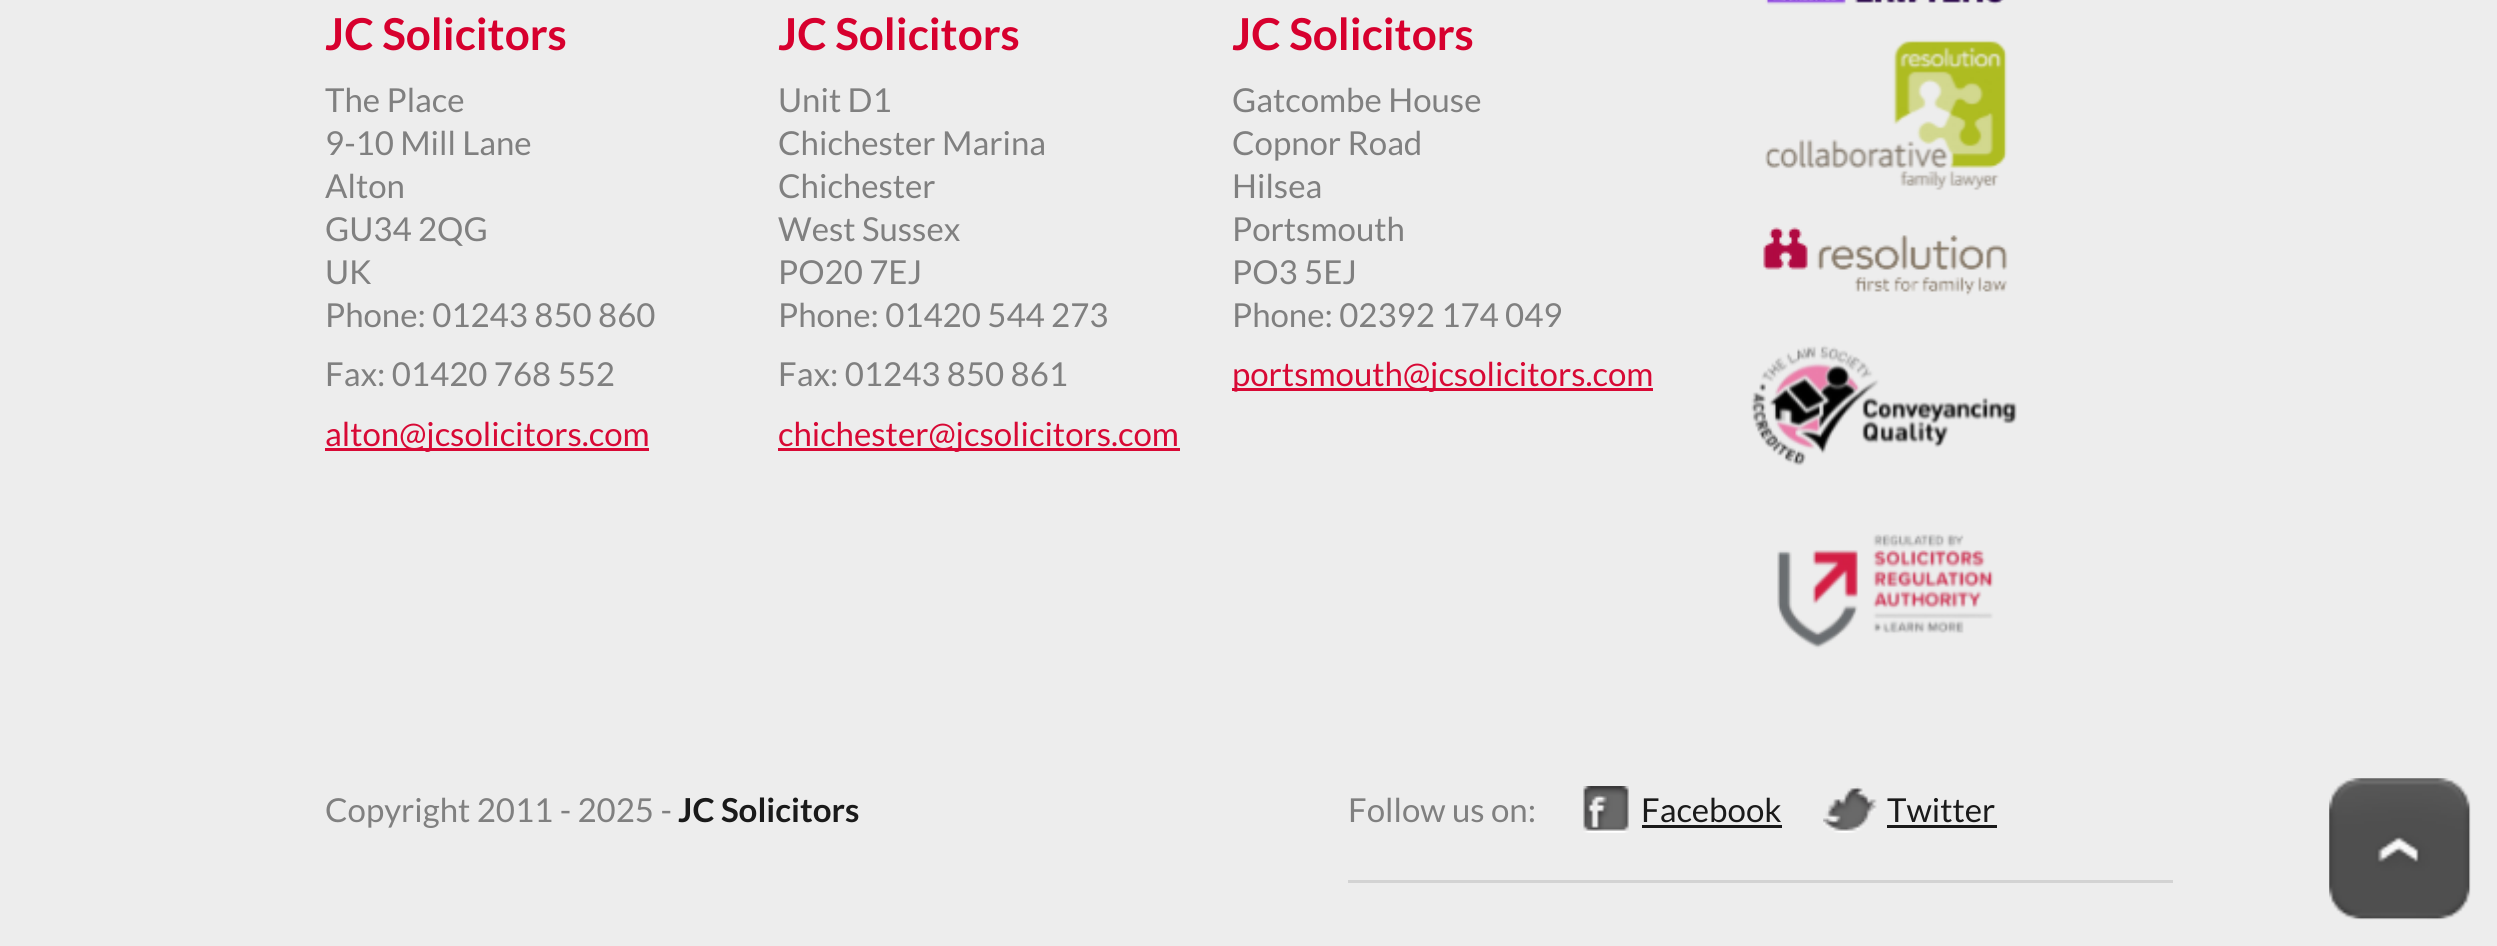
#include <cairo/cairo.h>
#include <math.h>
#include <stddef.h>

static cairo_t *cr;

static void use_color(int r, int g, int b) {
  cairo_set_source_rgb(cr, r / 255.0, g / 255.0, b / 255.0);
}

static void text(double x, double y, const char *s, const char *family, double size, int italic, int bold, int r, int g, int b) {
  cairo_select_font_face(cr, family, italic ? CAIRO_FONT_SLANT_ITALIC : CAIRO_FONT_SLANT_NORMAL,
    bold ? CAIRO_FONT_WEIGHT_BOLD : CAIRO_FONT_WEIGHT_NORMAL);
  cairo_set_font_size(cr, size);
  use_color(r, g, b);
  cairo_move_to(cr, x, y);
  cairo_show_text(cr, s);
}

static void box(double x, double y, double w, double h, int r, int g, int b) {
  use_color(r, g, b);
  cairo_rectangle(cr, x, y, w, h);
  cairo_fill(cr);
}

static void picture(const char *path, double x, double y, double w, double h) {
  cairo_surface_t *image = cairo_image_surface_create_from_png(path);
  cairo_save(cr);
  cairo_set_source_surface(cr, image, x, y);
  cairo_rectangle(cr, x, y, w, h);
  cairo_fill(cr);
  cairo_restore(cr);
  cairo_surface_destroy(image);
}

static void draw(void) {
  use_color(237, 237, 237);
  cairo_paint(cr);
  box(325, 448, 324, 3, 216, 9, 53);
  box(778, 448, 402, 3, 216, 9, 53);
  box(1232, 388, 421, 3, 216, 9, 53);
  picture("img_01.png", 1751, 0, 266, 649);
  box(1348, 880, 825, 3, 211, 211, 211);
  picture("img_02.png", 1583, 786, 46, 47);
  box(1642, 825, 140, 3, 26, 26, 26);
  picture("img_03.png", 1823, 786, 54, 47);
  box(1887, 825, 110, 3, 26, 26, 26);
  picture("img_04.png", 2329, 778, 142, 142);
  text(325, 50, "JC Solicitors", "Lato", 44, 0, 1, 215, 0, 46);
  text(325, 112, "The Place", "Lato", 33, 0, 0, 128, 128, 128);
  text(325, 155, "9-10 Mill Lane", "Lato", 33, 0, 0, 128, 128, 128);
  text(325, 198, "Alton", "Lato", 33, 0, 0, 128, 128, 128);
  text(325, 241, "GU34 2QG", "Lato", 33, 0, 0, 128, 128, 128);
  text(325, 284, "UK", "Lato", 33, 0, 0, 128, 128, 128);
  text(325, 327, "Phone: 01243 850 860", "Lato", 33, 0, 0, 128, 128, 128);
  text(325, 386, "Fax: 01420 768 552", "Lato", 33, 0, 0, 128, 128, 128);
  text(325, 446, "alton@jcsolicitors.com", "Lato", 33, 0, 0, 216, 9, 53);
  text(778, 50, "JC Solicitors", "Lato", 44, 0, 1, 215, 0, 46);
  text(778, 112, "Unit D1", "Lato", 33, 0, 0, 128, 128, 128);
  text(778, 155, "Chichester Marina", "Lato", 33, 0, 0, 128, 128, 128);
  text(778, 198, "Chichester", "Lato", 33, 0, 0, 128, 128, 128);
  text(778, 241, "West Sussex", "Lato", 33, 0, 0, 128, 128, 128);
  text(778, 284, "PO20 7EJ", "Lato", 33, 0, 0, 128, 128, 128);
  text(778, 327, "Phone: 01420 544 273", "Lato", 33, 0, 0, 128, 128, 128);
  text(778, 386, "Fax: 01243 850 861", "Lato", 33, 0, 0, 128, 128, 128);
  text(778, 446, "chichester@jcsolicitors.com", "Lato", 33, 0, 0, 216, 9, 53);
  text(1232, 50, "JC Solicitors", "Lato", 44, 0, 1, 215, 0, 46);
  text(1232, 112, "Gatcombe House", "Lato", 33, 0, 0, 128, 128, 128);
  text(1232, 155, "Copnor Road", "Lato", 33, 0, 0, 128, 128, 128);
  text(1232, 198, "Hilsea", "Lato", 33, 0, 0, 128, 128, 128);
  text(1232, 241, "Portsmouth", "Lato", 33, 0, 0, 128, 128, 128);
  text(1232, 284, "PO3 5EJ", "Lato", 33, 0, 0, 128, 128, 128);
  text(1232, 327, "Phone: 02392 174 049", "Lato", 33, 0, 0, 128, 128, 128);
  text(1232, 386, "portsmouth@jcsolicitors.com", "Lato", 33, 0, 0, 216, 9, 53);
  text(325, 822, "Copyright 2011 - 2025 -", "Lato", 33, 0, 0, 128, 128, 128);
  text(678, 822, "JC Solicitors", "Lato", 33, 0, 1, 26, 26, 26);
  text(1348, 822, "Follow us on:", "Lato", 33, 0, 0, 128, 128, 128);
  text(1641, 822, "Facebook", "Lato", 33, 0, 0, 26, 26, 26);
  text(1887, 822, "Twitter", "Lato", 33, 0, 0, 26, 26, 26);
}

int main(void) {
  cairo_surface_t *surface = cairo_image_surface_create(CAIRO_FORMAT_RGB24, 2497, 946);
  cr = cairo_create(surface);
  cairo_font_options_t *options = cairo_font_options_create();
  cairo_font_options_set_hint_metrics(options, CAIRO_HINT_METRICS_OFF);
  cairo_font_options_set_hint_style(options, CAIRO_HINT_STYLE_NONE);
  cairo_set_font_options(cr, options);
  cairo_set_miter_limit(cr, 4);
  draw();
  cairo_surface_write_to_png(surface, "out.png");
  cairo_font_options_destroy(options);
  cairo_destroy(cr);
  cairo_surface_destroy(surface);
  return 0;
}
